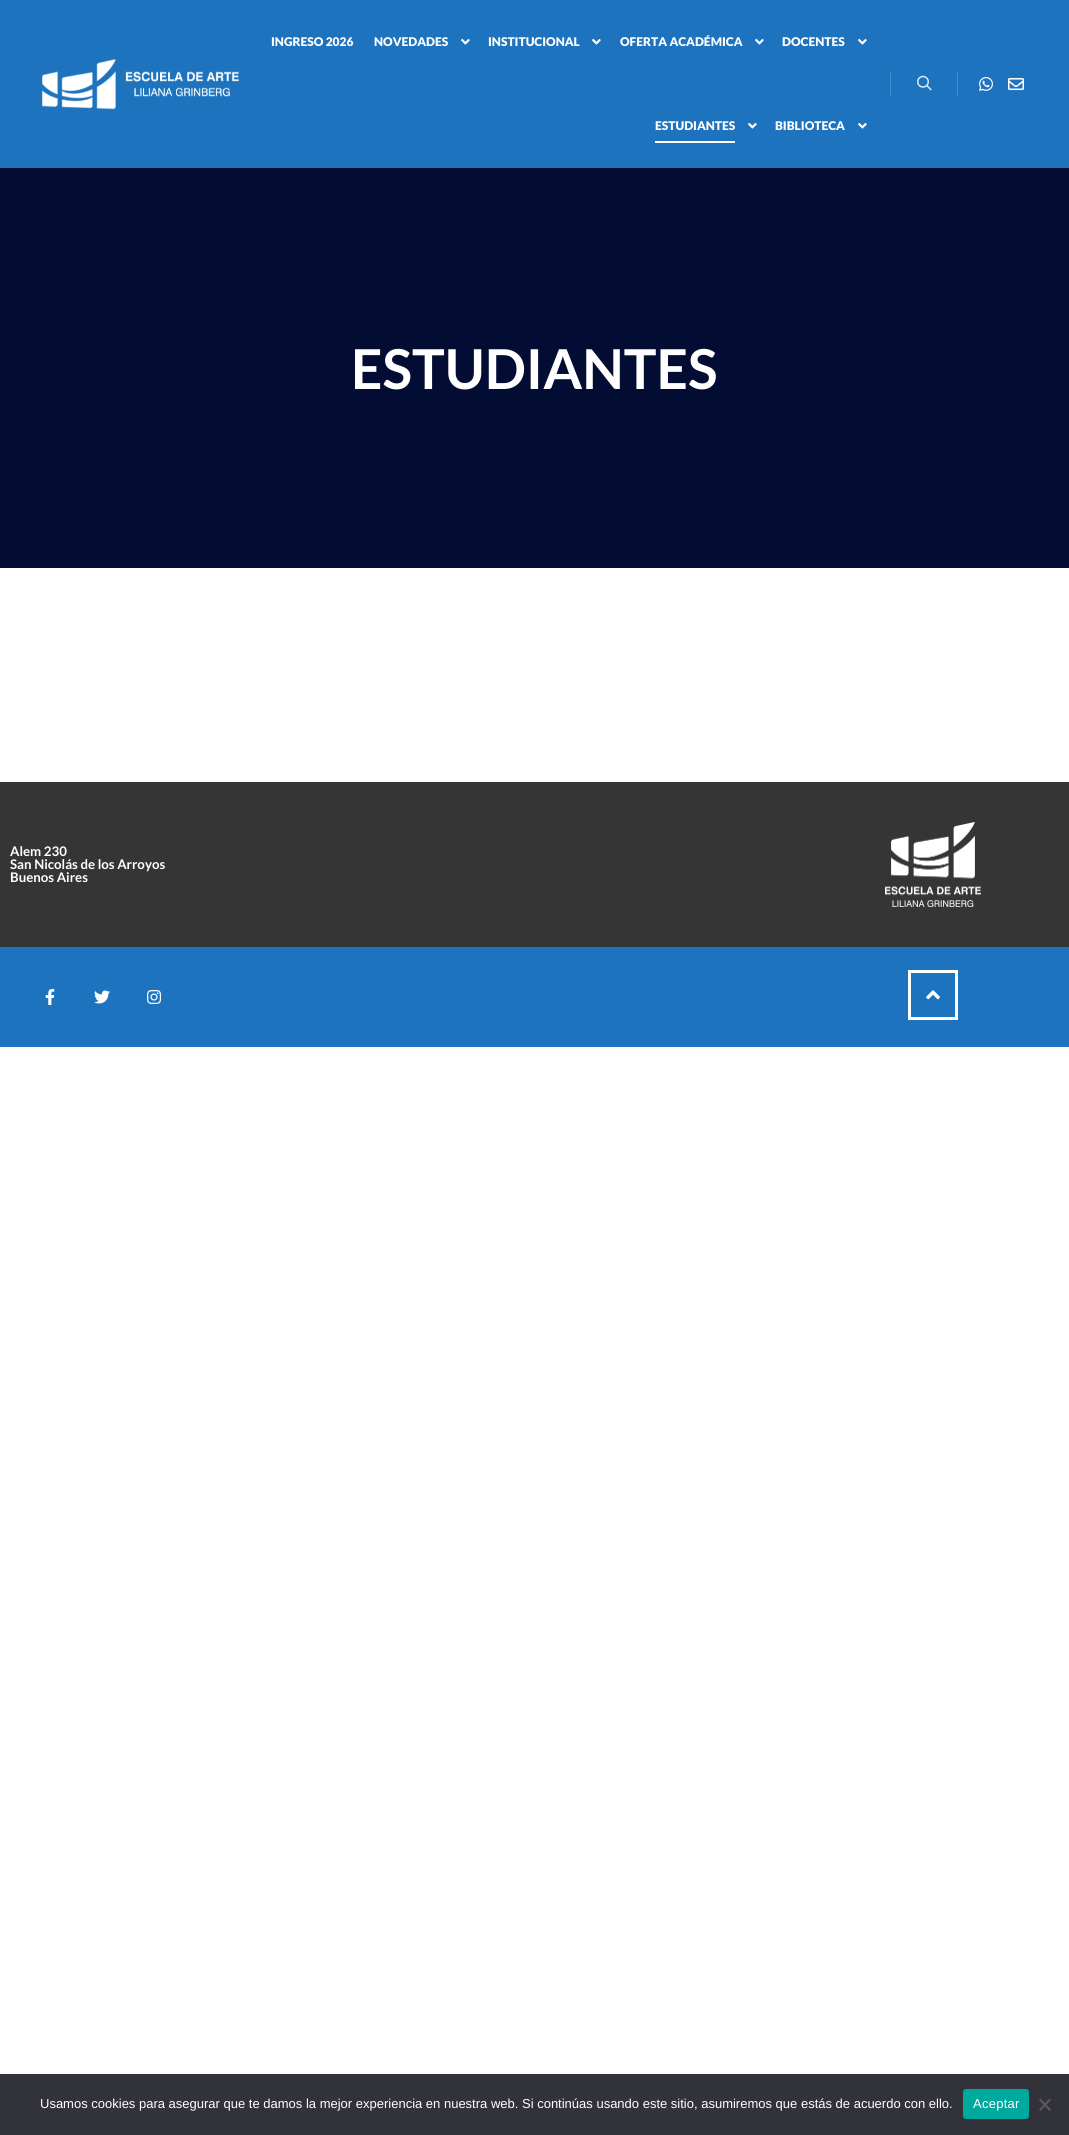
#include <cairo/cairo.h>
#include <math.h>
#include <stddef.h>

static cairo_t *cr;

static void use_color(int r, int g, int b) {
  cairo_set_source_rgb(cr, r / 255.0, g / 255.0, b / 255.0);
}

static void text(double x, double y, const char *s, const char *family, double size, int italic, int bold, int r, int g, int b) {
  cairo_select_font_face(cr, family, italic ? CAIRO_FONT_SLANT_ITALIC : CAIRO_FONT_SLANT_NORMAL,
    bold ? CAIRO_FONT_WEIGHT_BOLD : CAIRO_FONT_WEIGHT_NORMAL);
  cairo_set_font_size(cr, size);
  use_color(r, g, b);
  cairo_move_to(cr, x, y);
  cairo_show_text(cr, s);
}

static void spaced_text(double x, double y, const char *s, double letter, double word) {
  cairo_move_to(cr, x, y);
  while (*s) {
    char ch[5] = {0};
    int n = 0;
    do ch[n++] = *s++; while ((*s & 0xC0) == 0x80);
    cairo_show_text(cr, ch);
    cairo_rel_move_to(cr, letter + word * (*ch == ' '), 0);
  }
}

static void box(double x, double y, double w, double h, int r, int g, int b) {
  use_color(r, g, b);
  cairo_rectangle(cr, x, y, w, h);
  cairo_fill(cr);
}

static void round_rect(double x, double y, double w, double h, double r) {
  cairo_new_sub_path(cr);
  cairo_arc(cr, x + w - r, y + h - r, r, 0, M_PI / 2);
  cairo_arc(cr, x + r, y + h - r, r, M_PI / 2, M_PI);
  cairo_arc(cr, x + r, y + r, r, M_PI, 1.5 * M_PI);
  cairo_arc(cr, x + w - r, y + r, r, 1.5 * M_PI, 2 * M_PI);
  cairo_close_path(cr);
}

static void picture(const char *path, double x, double y, double w, double h) {
  cairo_surface_t *image = cairo_image_surface_create_from_png(path);
  cairo_save(cr);
  cairo_set_source_surface(cr, image, x, y);
  cairo_rectangle(cr, x, y, w, h);
  cairo_fill(cr);
  cairo_restore(cr);
  cairo_surface_destroy(image);
}

static void draw(void) {
  use_color(255, 255, 255);
  cairo_paint(cr);
  box(0, 0, 1069, 168, 30, 115, 190);
  picture("img_01.png", 42, 59, 197, 51);
  picture("img_02.png", 461, 39, 9, 6);
  picture("img_02.png", 592, 39, 9, 6);
  picture("img_02.png", 755, 39, 9, 6);
  picture("img_02.png", 858, 39, 9, 6);
  box(655, 141, 80, 2, 255, 255, 255);
  picture("img_02.png", 748, 123, 9, 6);
  picture("img_02.png", 858, 123, 9, 6);
  box(890, 72, 1, 25, 68, 139, 201);
  picture("img_03.png", 917, 75, 15, 16);
  box(957, 72, 1, 25, 68, 139, 201);
  picture("img_04.png", 979, 77, 14, 14);
  picture("img_05.png", 1008, 78, 16, 12);
  box(0, 168, 1069, 400, 3, 12, 51);
  box(0, 782, 1069, 165, 53, 53, 53);
  picture("img_06.png", 885, 822, 96, 85);
  box(0, 947, 1069, 100, 30, 115, 190);
  picture("img_07.png", 45, 989, 10, 16);
  picture("img_08.png", 94, 990, 16, 14);
  picture("img_09.png", 147, 990, 15, 14);
  cairo_rectangle(cr, 909.5, 971.5, 47, 47);
  use_color(255, 255, 255);
  cairo_set_line_width(cr, 3);
  cairo_stroke(cr);
  picture("img_10.png", 926, 990, 14, 10);
  box(0, 2074, 1069, 61, 50, 50, 58);
  use_color(0, 169, 157);
  round_rect(963, 2089, 66, 30, 3);
  cairo_fill(cr);
  use_color(89, 89, 93);
  cairo_new_path(cr);
  cairo_move_to(cr, 1049.5, 2098.5);
  cairo_line_to(cr, 1051, 2100);
  cairo_line_to(cr, 1040.5, 2111);
  cairo_line_to(cr, 1039, 2109.5);
  cairo_close_path(cr);
  cairo_fill(cr);
  cairo_new_path(cr);
  cairo_move_to(cr, 1039, 2100);
  cairo_line_to(cr, 1040.5, 2098.5);
  cairo_line_to(cr, 1051, 2109.5);
  cairo_line_to(cr, 1049.5, 2111);
  cairo_close_path(cr);
  cairo_fill(cr);
  text(271, 46, "INGRESO 2026", "Lato Black", 12, 0, 0, 255, 255, 255);
  text(374, 46, "NOVEDADES", "Lato Black", 12, 0, 0, 255, 255, 255);
  text(488, 46, "INSTITUCIONAL", "Lato Black", 12, 0, 0, 255, 255, 255);
  text(620, 46, "OFERTA ACADÉMICA", "Lato Black", 12, 0, 0, 255, 255, 255);
  text(782, 46, "DOCENTES", "Lato Black", 12, 0, 0, 255, 255, 255);
  text(655, 130, "ESTUDIANTES", "Lato Black", 12, 0, 0, 255, 255, 255);
  text(775, 130, "BIBLIOTECA", "Lato Black", 12, 0, 0, 255, 255, 255);
  text(351, 389, "ESTUDIANTES", "Lato", 55, 0, 1, 255, 255, 255);
  text(10, 856, "Alem 230", "Lato", 13.25, 0, 1, 255, 255, 255);
  text(10, 869, "San Nicolás de los Arroyos", "Lato", 13.25, 0, 1, 255, 255, 255);
  text(10, 882, "Buenos Aires", "Lato", 13.25, 0, 1, 255, 255, 255);
  text(40, 2108, "Usamos cookies para asegurar que te damos la mejor experiencia en nuestra web. Si continúas usando este sitio, asumiremos que estás de acuerdo con ello.", "Liberation Sans", 13, 0, 0, 255, 255, 255);
  spaced_text(973, 2108, "Aceptar", 0.25, 0);
}

int main(void) {
  cairo_surface_t *surface = cairo_image_surface_create(CAIRO_FORMAT_RGB24, 1069, 2135);
  cr = cairo_create(surface);
  cairo_font_options_t *options = cairo_font_options_create();
  cairo_font_options_set_hint_metrics(options, CAIRO_HINT_METRICS_OFF);
  cairo_font_options_set_hint_style(options, CAIRO_HINT_STYLE_NONE);
  cairo_set_font_options(cr, options);
  cairo_set_miter_limit(cr, 4);
  draw();
  cairo_surface_write_to_png(surface, "out.png");
  cairo_font_options_destroy(options);
  cairo_destroy(cr);
  cairo_surface_destroy(surface);
  return 0;
}
